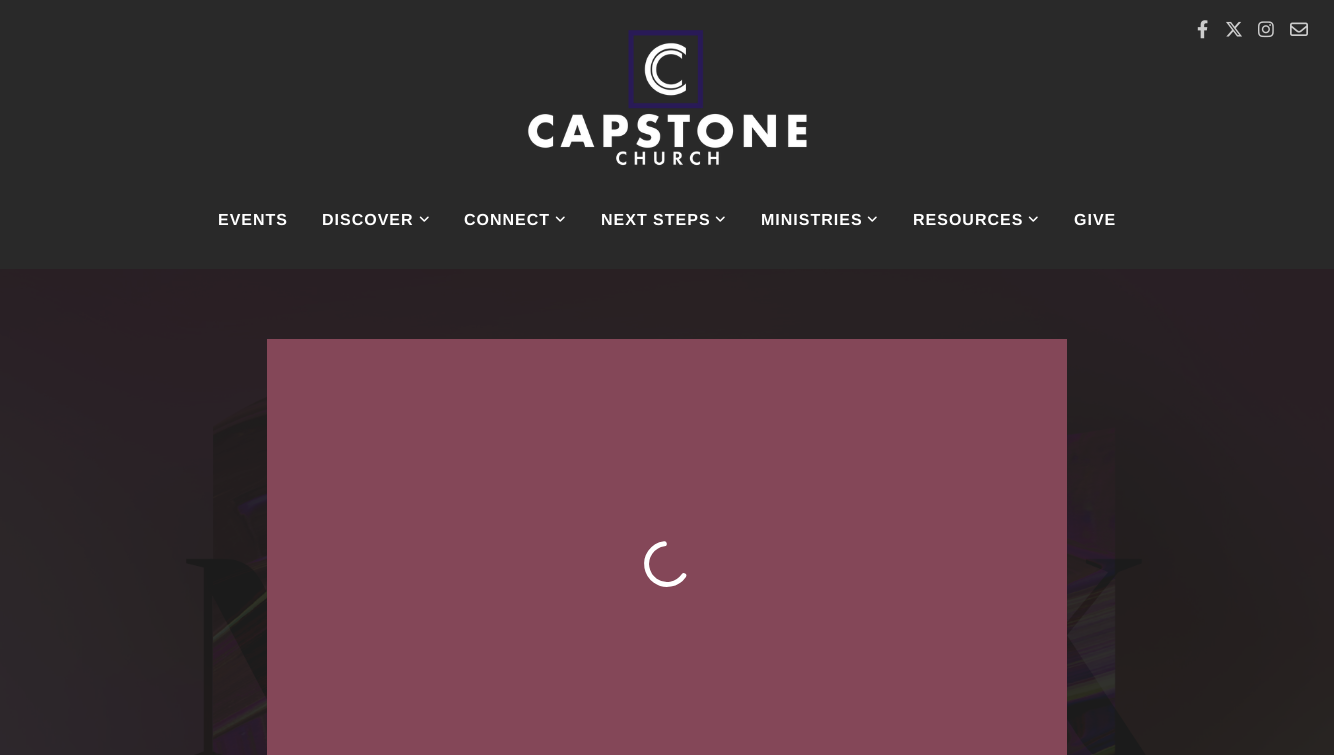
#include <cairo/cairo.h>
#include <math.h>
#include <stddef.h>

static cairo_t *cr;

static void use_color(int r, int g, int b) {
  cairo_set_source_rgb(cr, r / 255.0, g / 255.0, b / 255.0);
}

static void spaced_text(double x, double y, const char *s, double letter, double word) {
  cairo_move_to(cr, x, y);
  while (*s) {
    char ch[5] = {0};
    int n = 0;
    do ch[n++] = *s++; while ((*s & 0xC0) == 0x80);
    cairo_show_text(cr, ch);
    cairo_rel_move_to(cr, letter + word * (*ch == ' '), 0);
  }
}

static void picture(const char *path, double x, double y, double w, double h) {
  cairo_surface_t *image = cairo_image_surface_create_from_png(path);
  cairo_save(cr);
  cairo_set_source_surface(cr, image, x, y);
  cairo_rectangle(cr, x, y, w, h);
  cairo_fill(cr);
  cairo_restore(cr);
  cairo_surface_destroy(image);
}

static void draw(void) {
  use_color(41, 41, 41);
  cairo_paint(cr);
  picture("img_01.png", 527, 30, 280, 136);
  picture("img_02.png", 1197, 20, 11, 19);
  picture("img_03.png", 1226, 21, 16, 16);
  picture("img_04.png", 1258, 21, 16, 17);
  picture("img_05.png", 1290, 22, 18, 14);
  picture("img_06.png", 419, 216, 10, 6);
  picture("img_06.png", 555, 216, 10, 6);
  picture("img_06.png", 715, 216, 10, 6);
  picture("img_06.png", 867, 216, 10, 6);
  picture("img_06.png", 1028, 216, 10, 6);
  picture("img_07.png", 0, 269, 1334, 486);
  picture("img_08.png", 267, 339, 800, 416);
  cairo_select_font_face(cr, "Liberation Sans", CAIRO_FONT_SLANT_NORMAL, CAIRO_FONT_WEIGHT_BOLD);
  cairo_set_font_size(cr, 16);
  use_color(255, 255, 255);
  spaced_text(218, 225, "EVENTS", 1, 0);
  spaced_text(322, 225, "DISCOVER", 1, 0);
  spaced_text(464, 225, "CONNECT", 1, 0);
  spaced_text(601, 225, "NEXT STEPS", 1, 0);
  spaced_text(761, 225, "MINISTRIES", 1, 0);
  spaced_text(913, 225, "RESOURCES", 1, 0);
  spaced_text(1074, 225, "GIVE", 1, 0);
}

int main(void) {
  cairo_surface_t *surface = cairo_image_surface_create(CAIRO_FORMAT_RGB24, 1334, 755);
  cr = cairo_create(surface);
  cairo_font_options_t *options = cairo_font_options_create();
  cairo_font_options_set_hint_metrics(options, CAIRO_HINT_METRICS_OFF);
  cairo_font_options_set_hint_style(options, CAIRO_HINT_STYLE_NONE);
  cairo_set_font_options(cr, options);
  cairo_set_miter_limit(cr, 4);
  draw();
  cairo_surface_write_to_png(surface, "out.png");
  cairo_font_options_destroy(options);
  cairo_destroy(cr);
  cairo_surface_destroy(surface);
  return 0;
}
